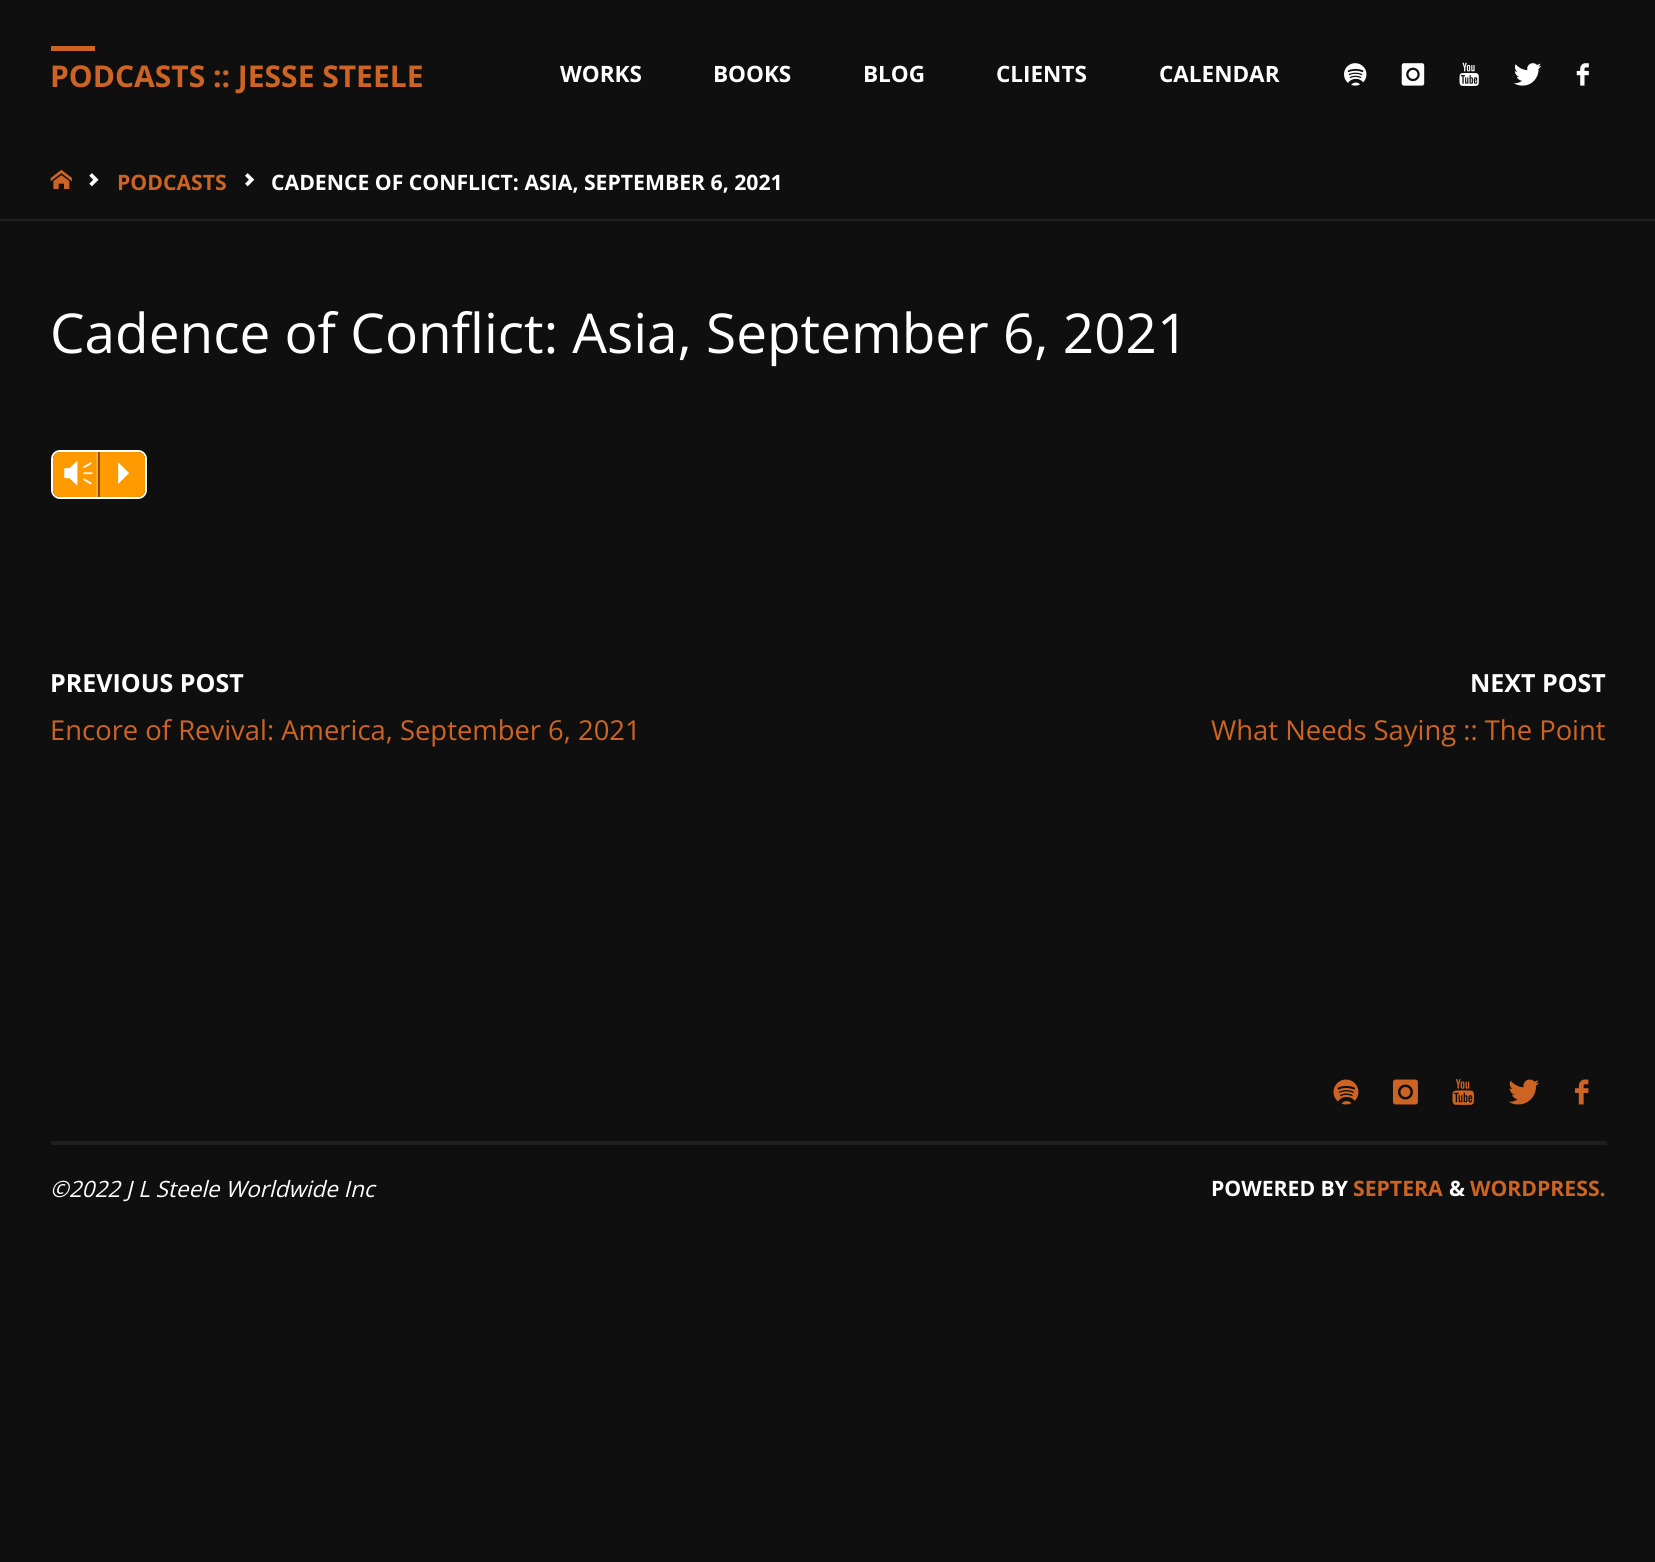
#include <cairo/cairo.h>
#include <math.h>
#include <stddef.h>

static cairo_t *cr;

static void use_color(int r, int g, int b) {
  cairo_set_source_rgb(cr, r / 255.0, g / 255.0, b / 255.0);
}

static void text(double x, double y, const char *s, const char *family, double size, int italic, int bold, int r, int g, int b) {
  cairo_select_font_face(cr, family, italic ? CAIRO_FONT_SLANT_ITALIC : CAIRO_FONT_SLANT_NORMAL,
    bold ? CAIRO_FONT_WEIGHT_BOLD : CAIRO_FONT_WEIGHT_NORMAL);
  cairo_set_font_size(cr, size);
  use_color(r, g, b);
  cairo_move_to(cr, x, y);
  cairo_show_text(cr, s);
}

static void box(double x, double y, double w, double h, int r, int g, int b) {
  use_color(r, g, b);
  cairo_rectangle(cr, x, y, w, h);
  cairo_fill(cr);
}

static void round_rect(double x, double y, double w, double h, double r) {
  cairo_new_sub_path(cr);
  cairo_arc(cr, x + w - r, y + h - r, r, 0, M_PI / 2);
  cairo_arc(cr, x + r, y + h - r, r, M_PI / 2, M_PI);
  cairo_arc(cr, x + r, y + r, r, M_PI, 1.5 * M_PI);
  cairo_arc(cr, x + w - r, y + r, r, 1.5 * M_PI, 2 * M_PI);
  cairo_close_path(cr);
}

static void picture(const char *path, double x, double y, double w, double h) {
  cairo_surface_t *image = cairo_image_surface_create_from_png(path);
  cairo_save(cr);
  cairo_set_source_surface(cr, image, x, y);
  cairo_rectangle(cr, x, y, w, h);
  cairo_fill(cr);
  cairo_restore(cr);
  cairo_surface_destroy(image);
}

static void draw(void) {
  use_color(15, 15, 15);
  cairo_paint(cr);
  box(51, 46, 44, 5, 206, 100, 35);
  picture("img_01.png", 1344, 63, 23, 23);
  picture("img_02.png", 1401, 63, 24, 23);
  picture("img_03.png", 1459, 62, 20, 24);
  picture("img_04.png", 1514, 63, 28, 23);
  picture("img_05.png", 1576, 63, 13, 23);
  box(0, 219, 1655, 2, 32, 32, 32);
  picture("img_06.png", 50, 169, 22, 20);
  picture("img_07.png", 89, 173, 10, 14);
  picture("img_08.png", 245, 173, 10, 14);
  round_rect(52, 451, 94, 47, 8);
  use_color(255, 255, 255);
  cairo_stroke(cr);
  use_color(255, 153, 0);
  cairo_new_path(cr);
  cairo_move_to(cr, 60, 452);
  cairo_line_to(cr, 98, 452);
  cairo_line_to(cr, 98, 497);
  cairo_line_to(cr, 60, 497);
  cairo_curve_to(cr, 56, 497, 53, 494, 53, 490);
  cairo_line_to(cr, 53, 459);
  cairo_curve_to(cr, 53, 455, 56, 452, 60, 452);
  cairo_close_path(cr);
  cairo_fill(cr);
  box(96, 452, 2, 45, 254, 168, 39);
  use_color(255, 153, 0);
  cairo_new_path(cr);
  cairo_move_to(cr, 98, 452);
  cairo_line_to(cr, 138, 452);
  cairo_curve_to(cr, 142, 452, 145, 455, 145, 459);
  cairo_line_to(cr, 145, 490);
  cairo_curve_to(cr, 145, 494, 142, 497, 138, 497);
  cairo_line_to(cr, 98, 497);
  cairo_close_path(cr);
  cairo_fill(cr);
  box(98, 452, 2, 45, 140, 80, 2);
  picture("img_09.png", 1333, 1079, 26, 26);
  picture("img_10.png", 1393, 1079, 25, 26);
  picture("img_11.png", 1452, 1079, 22, 26);
  picture("img_12.png", 1508, 1079, 31, 26);
  picture("img_13.png", 1575, 1079, 14, 26);
  box(51, 1141, 1556, 4, 30, 30, 30);
  text(50, 87, "PODCASTS :: JESSE STEELE", "Open Sans", 30, 0, 1, 206, 100, 35);
  text(560, 82, "WORKS", "Open Sans", 22.5, 0, 1, 255, 255, 255);
  text(713, 82, "BOOKS", "Open Sans", 22.5, 0, 1, 255, 255, 255);
  text(863, 82, "BLOG", "Open Sans", 22.5, 0, 1, 255, 255, 255);
  text(996, 82, "CLIENTS", "Open Sans", 22.5, 0, 1, 255, 255, 255);
  text(1159, 82, "CALENDAR", "Open Sans", 22.5, 0, 1, 255, 255, 255);
  text(117, 190, "PODCASTS", "Open Sans", 21.2, 0, 1, 206, 100, 35);
  text(271, 190, "CADENCE OF CONFLICT: ASIA, SEPTEMBER 6, 2021", "Open Sans", 21.2, 0, 1, 255, 255, 255);
  text(50, 353, "Cadence of Conflict: Asia, September 6, 2021", "Open Sans", 54.9, 0, 0, 255, 255, 255);
  text(62, 484, "Vm", "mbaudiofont", 35, 0, 0, 255, 255, 255);
  text(105, 484, "P", "mbaudiofont", 35, 0, 0, 255, 255, 255);
  text(50, 692, "PREVIOUS POST", "Open Sans", 25, 0, 1, 255, 255, 255);
  text(50, 740, "Encore of Revival: America, September 6, 2021", "Open Sans", 27.4, 0, 0, 206, 100, 35);
  text(1470, 692, "NEXT POST", "Open Sans", 25, 0, 1, 255, 255, 255);
  text(1211, 740, "What Needs Saying :: The Point", "Open Sans", 27.4, 0, 0, 206, 100, 35);
  text(50, 1197, "©2022 J L Steele Worldwide Inc", "Open Sans", 22.5, 1, 0, 255, 255, 255);
  text(1211, 1196, "POWERED BY", "Open Sans", 21.2, 0, 1, 255, 255, 255);
  text(1353, 1196, "SEPTERA", "Open Sans", 21.2, 0, 1, 206, 100, 35);
  text(1449, 1196, "&", "Open Sans", 21.2, 0, 1, 255, 255, 255);
  text(1470, 1196, "WORDPRESS.", "Open Sans", 21.2, 0, 1, 206, 100, 35);
}

int main(void) {
  cairo_surface_t *surface = cairo_image_surface_create(CAIRO_FORMAT_RGB24, 1655, 1562);
  cr = cairo_create(surface);
  cairo_font_options_t *options = cairo_font_options_create();
  cairo_font_options_set_hint_metrics(options, CAIRO_HINT_METRICS_OFF);
  cairo_font_options_set_hint_style(options, CAIRO_HINT_STYLE_NONE);
  cairo_set_font_options(cr, options);
  cairo_set_miter_limit(cr, 4);
  draw();
  cairo_surface_write_to_png(surface, "out.png");
  cairo_font_options_destroy(options);
  cairo_destroy(cr);
  cairo_surface_destroy(surface);
  return 0;
}
